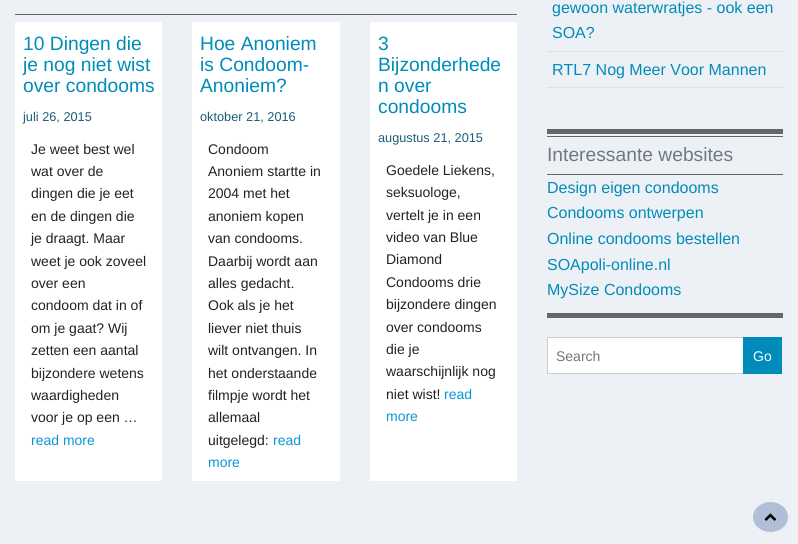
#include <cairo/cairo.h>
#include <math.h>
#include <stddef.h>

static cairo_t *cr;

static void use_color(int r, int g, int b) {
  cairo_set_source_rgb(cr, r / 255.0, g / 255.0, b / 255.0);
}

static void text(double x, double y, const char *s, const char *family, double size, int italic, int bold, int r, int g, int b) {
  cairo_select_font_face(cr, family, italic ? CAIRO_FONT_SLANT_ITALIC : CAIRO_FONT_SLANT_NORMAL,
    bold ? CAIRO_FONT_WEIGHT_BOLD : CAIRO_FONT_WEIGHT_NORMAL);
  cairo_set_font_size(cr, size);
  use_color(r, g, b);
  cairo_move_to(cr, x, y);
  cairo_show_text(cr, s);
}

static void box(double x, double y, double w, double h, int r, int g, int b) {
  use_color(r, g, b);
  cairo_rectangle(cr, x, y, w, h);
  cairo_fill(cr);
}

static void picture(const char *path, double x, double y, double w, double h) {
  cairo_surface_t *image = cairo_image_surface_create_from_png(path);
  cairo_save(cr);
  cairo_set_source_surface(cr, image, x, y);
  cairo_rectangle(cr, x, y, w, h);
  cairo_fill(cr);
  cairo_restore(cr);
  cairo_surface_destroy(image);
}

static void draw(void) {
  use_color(237, 240, 244);
  cairo_paint(cr);
  box(15, 14, 502, 1, 102, 102, 102);
  box(15, 22, 147, 459, 255, 255, 255);
  box(15, 481, 147, 1, 238, 238, 238);
  box(192, 22, 148, 459, 255, 255, 255);
  box(192, 481, 148, 1, 238, 238, 238);
  box(370, 22, 147, 459, 255, 255, 255);
  box(370, 481, 147, 1, 238, 238, 238);
  box(547, 51, 236, 1, 225, 225, 225);
  box(547, 87, 236, 1, 225, 225, 225);
  box(547, 129, 236, 5, 102, 102, 102);
  box(547, 136, 236, 1, 102, 102, 102);
  box(547, 174, 236, 1, 102, 102, 102);
  box(547, 313, 236, 5, 102, 102, 102);
  use_color(255, 255, 255);
  cairo_rectangle(cr, 547.5, 337.5, 196, 36);
  cairo_fill_preserve(cr);
  use_color(204, 204, 204);
  cairo_set_line_width(cr, 1);
  cairo_stroke(cr);
  box(743, 337, 39, 37, 0, 140, 186);
  use_color(176, 191, 215);
  cairo_new_path(cr);
  cairo_move_to(cr, 770.5, 502);
  cairo_curve_to(cr, 780, 502, 788, 508.5, 788, 517);
  cairo_curve_to(cr, 788, 525.5, 780, 532, 770.5, 532);
  cairo_curve_to(cr, 761, 532, 753, 525.5, 753, 517);
  cairo_curve_to(cr, 753, 508.5, 761, 502, 770.5, 502);
  cairo_close_path(cr);
  cairo_fill(cr);
  picture("img_01.png", 764, 513, 13, 8);
  text(23, 50, "10 Dingen die", "Liberation Sans", 19.25, 0, 0, 0, 140, 186);
  text(23, 71, "je nog niet wist", "Liberation Sans", 19.25, 0, 0, 0, 140, 186);
  text(23, 92, "over condooms", "Liberation Sans", 19.25, 0, 0, 0, 140, 186);
  text(23, 121, "juli 26, 2015", "Liberation Sans", 12.75, 0, 0, 26, 92, 121);
  text(31, 154, "Je weet best wel", "Liberation Sans", 14, 0, 0, 34, 34, 34);
  text(31, 176, "wat over de", "Liberation Sans", 14, 0, 0, 34, 34, 34);
  text(31, 198, "dingen die je eet", "Liberation Sans", 14, 0, 0, 34, 34, 34);
  text(31, 221, "en de dingen die", "Liberation Sans", 14, 0, 0, 34, 34, 34);
  text(31, 243, "je draagt. Maar", "Liberation Sans", 14, 0, 0, 34, 34, 34);
  text(31, 266, "weet je ook zoveel", "Liberation Sans", 14, 0, 0, 34, 34, 34);
  text(31, 288, "over een", "Liberation Sans", 14, 0, 0, 34, 34, 34);
  text(31, 310, "condoom dat in of", "Liberation Sans", 14, 0, 0, 34, 34, 34);
  text(31, 333, "om je gaat? Wij", "Liberation Sans", 14, 0, 0, 34, 34, 34);
  text(31, 355, "zetten een aantal", "Liberation Sans", 14, 0, 0, 34, 34, 34);
  text(31, 378, "bijzondere wetens", "Liberation Sans", 14, 0, 0, 34, 34, 34);
  text(31, 400, "waardigheden", "Liberation Sans", 14, 0, 0, 34, 34, 34);
  text(31, 422, "voor je op een …", "Liberation Sans", 14, 0, 0, 34, 34, 34);
  text(31, 445, "read more", "Liberation Sans", 14, 0, 0, 12, 149, 214);
  text(200, 50, "Hoe Anoniem", "Liberation Sans", 19.25, 0, 0, 0, 140, 186);
  text(200, 71, "is Condoom-", "Liberation Sans", 19.25, 0, 0, 0, 140, 186);
  text(200, 92, "Anoniem?", "Liberation Sans", 19.25, 0, 0, 0, 140, 186);
  text(200, 121, "oktober 21, 2016", "Liberation Sans", 12.75, 0, 0, 26, 92, 121);
  text(208, 154, "Condoom", "Liberation Sans", 14, 0, 0, 34, 34, 34);
  text(208, 176, "Anoniem startte in", "Liberation Sans", 14, 0, 0, 34, 34, 34);
  text(208, 198, "2004 met het", "Liberation Sans", 14, 0, 0, 34, 34, 34);
  text(208, 221, "anoniem kopen", "Liberation Sans", 14, 0, 0, 34, 34, 34);
  text(208, 243, "van condooms.", "Liberation Sans", 14, 0, 0, 34, 34, 34);
  text(208, 266, "Daarbij wordt aan", "Liberation Sans", 14, 0, 0, 34, 34, 34);
  text(208, 288, "alles gedacht.", "Liberation Sans", 14, 0, 0, 34, 34, 34);
  text(208, 310, "Ook als je het", "Liberation Sans", 14, 0, 0, 34, 34, 34);
  text(208, 333, "liever niet thuis", "Liberation Sans", 14, 0, 0, 34, 34, 34);
  text(208, 355, "wilt ontvangen. In", "Liberation Sans", 14, 0, 0, 34, 34, 34);
  text(208, 378, "het onderstaande", "Liberation Sans", 14, 0, 0, 34, 34, 34);
  text(208, 400, "filmpje wordt het", "Liberation Sans", 14, 0, 0, 34, 34, 34);
  text(208, 422, "allemaal", "Liberation Sans", 14, 0, 0, 34, 34, 34);
  text(208, 445, "uitgelegd:", "Liberation Sans", 14, 0, 0, 34, 34, 34);
  text(273, 445, "read", "Liberation Sans", 14, 0, 0, 12, 149, 214);
  text(208, 467, "more", "Liberation Sans", 14, 0, 0, 12, 149, 214);
  text(378, 50, "3", "Liberation Sans", 19.25, 0, 0, 0, 140, 186);
  text(378, 71, "Bijzonderhede", "Liberation Sans", 19.25, 0, 0, 0, 140, 186);
  text(378, 92, "n over", "Liberation Sans", 19.25, 0, 0, 0, 140, 186);
  text(378, 113, "condooms", "Liberation Sans", 19.25, 0, 0, 0, 140, 186);
  text(378, 142, "augustus 21, 2015", "Liberation Sans", 12.75, 0, 0, 26, 92, 121);
  text(386, 175, "Goedele Liekens,", "Liberation Sans", 14, 0, 0, 34, 34, 34);
  text(386, 197, "seksuologe,", "Liberation Sans", 14, 0, 0, 34, 34, 34);
  text(386, 220, "vertelt je in een", "Liberation Sans", 14, 0, 0, 34, 34, 34);
  text(386, 242, "video van Blue", "Liberation Sans", 14, 0, 0, 34, 34, 34);
  text(386, 264, "Diamond", "Liberation Sans", 14, 0, 0, 34, 34, 34);
  text(386, 287, "Condooms drie", "Liberation Sans", 14, 0, 0, 34, 34, 34);
  text(386, 309, "bijzondere dingen", "Liberation Sans", 14, 0, 0, 34, 34, 34);
  text(386, 332, "over condooms", "Liberation Sans", 14, 0, 0, 34, 34, 34);
  text(386, 354, "die je", "Liberation Sans", 14, 0, 0, 34, 34, 34);
  text(386, 376, "waarschijnlijk nog", "Liberation Sans", 14, 0, 0, 34, 34, 34);
  text(386, 399, "niet wist!", "Liberation Sans", 14, 0, 0, 34, 34, 34);
  text(444, 399, "read", "Liberation Sans", 14, 0, 0, 12, 149, 214);
  text(386, 421, "more", "Liberation Sans", 14, 0, 0, 12, 149, 214);
  text(552, 13, "gewoon waterwratjes - ook een", "Liberation Sans", 16, 0, 0, 0, 140, 186);
  text(552, 38, "SOA?", "Liberation Sans", 16, 0, 0, 0, 140, 186);
  text(552, 75, "RTL7 Nog Meer Voor Mannen", "Liberation Sans", 16, 0, 0, 0, 140, 186);
  text(547, 161, "Interessante websites", "Liberation Sans", 19.25, 0, 0, 107, 123, 132);
  text(547, 193, "Design eigen condooms", "Liberation Sans", 16, 0, 0, 0, 140, 186);
  text(547, 218, "Condooms ontwerpen", "Liberation Sans", 16, 0, 0, 0, 140, 186);
  text(547, 244, "Online condooms bestellen", "Liberation Sans", 16, 0, 0, 0, 140, 186);
  text(547, 270, "SOApoli-online.nl", "Liberation Sans", 16, 0, 0, 0, 140, 186);
  text(547, 295, "MySize Condooms", "Liberation Sans", 16, 0, 0, 0, 140, 186);
  text(556, 361, "Search", "Liberation Sans", 14, 0, 0, 117, 117, 117);
  text(753, 361, "Go", "Liberation Sans", 14, 0, 0, 255, 255, 255);
}

int main(void) {
  cairo_surface_t *surface = cairo_image_surface_create(CAIRO_FORMAT_RGB24, 798, 544);
  cr = cairo_create(surface);
  cairo_font_options_t *options = cairo_font_options_create();
  cairo_font_options_set_hint_metrics(options, CAIRO_HINT_METRICS_OFF);
  cairo_font_options_set_hint_style(options, CAIRO_HINT_STYLE_NONE);
  cairo_set_font_options(cr, options);
  cairo_set_miter_limit(cr, 4);
  draw();
  cairo_surface_write_to_png(surface, "out.png");
  cairo_font_options_destroy(options);
  cairo_destroy(cr);
  cairo_surface_destroy(surface);
  return 0;
}
